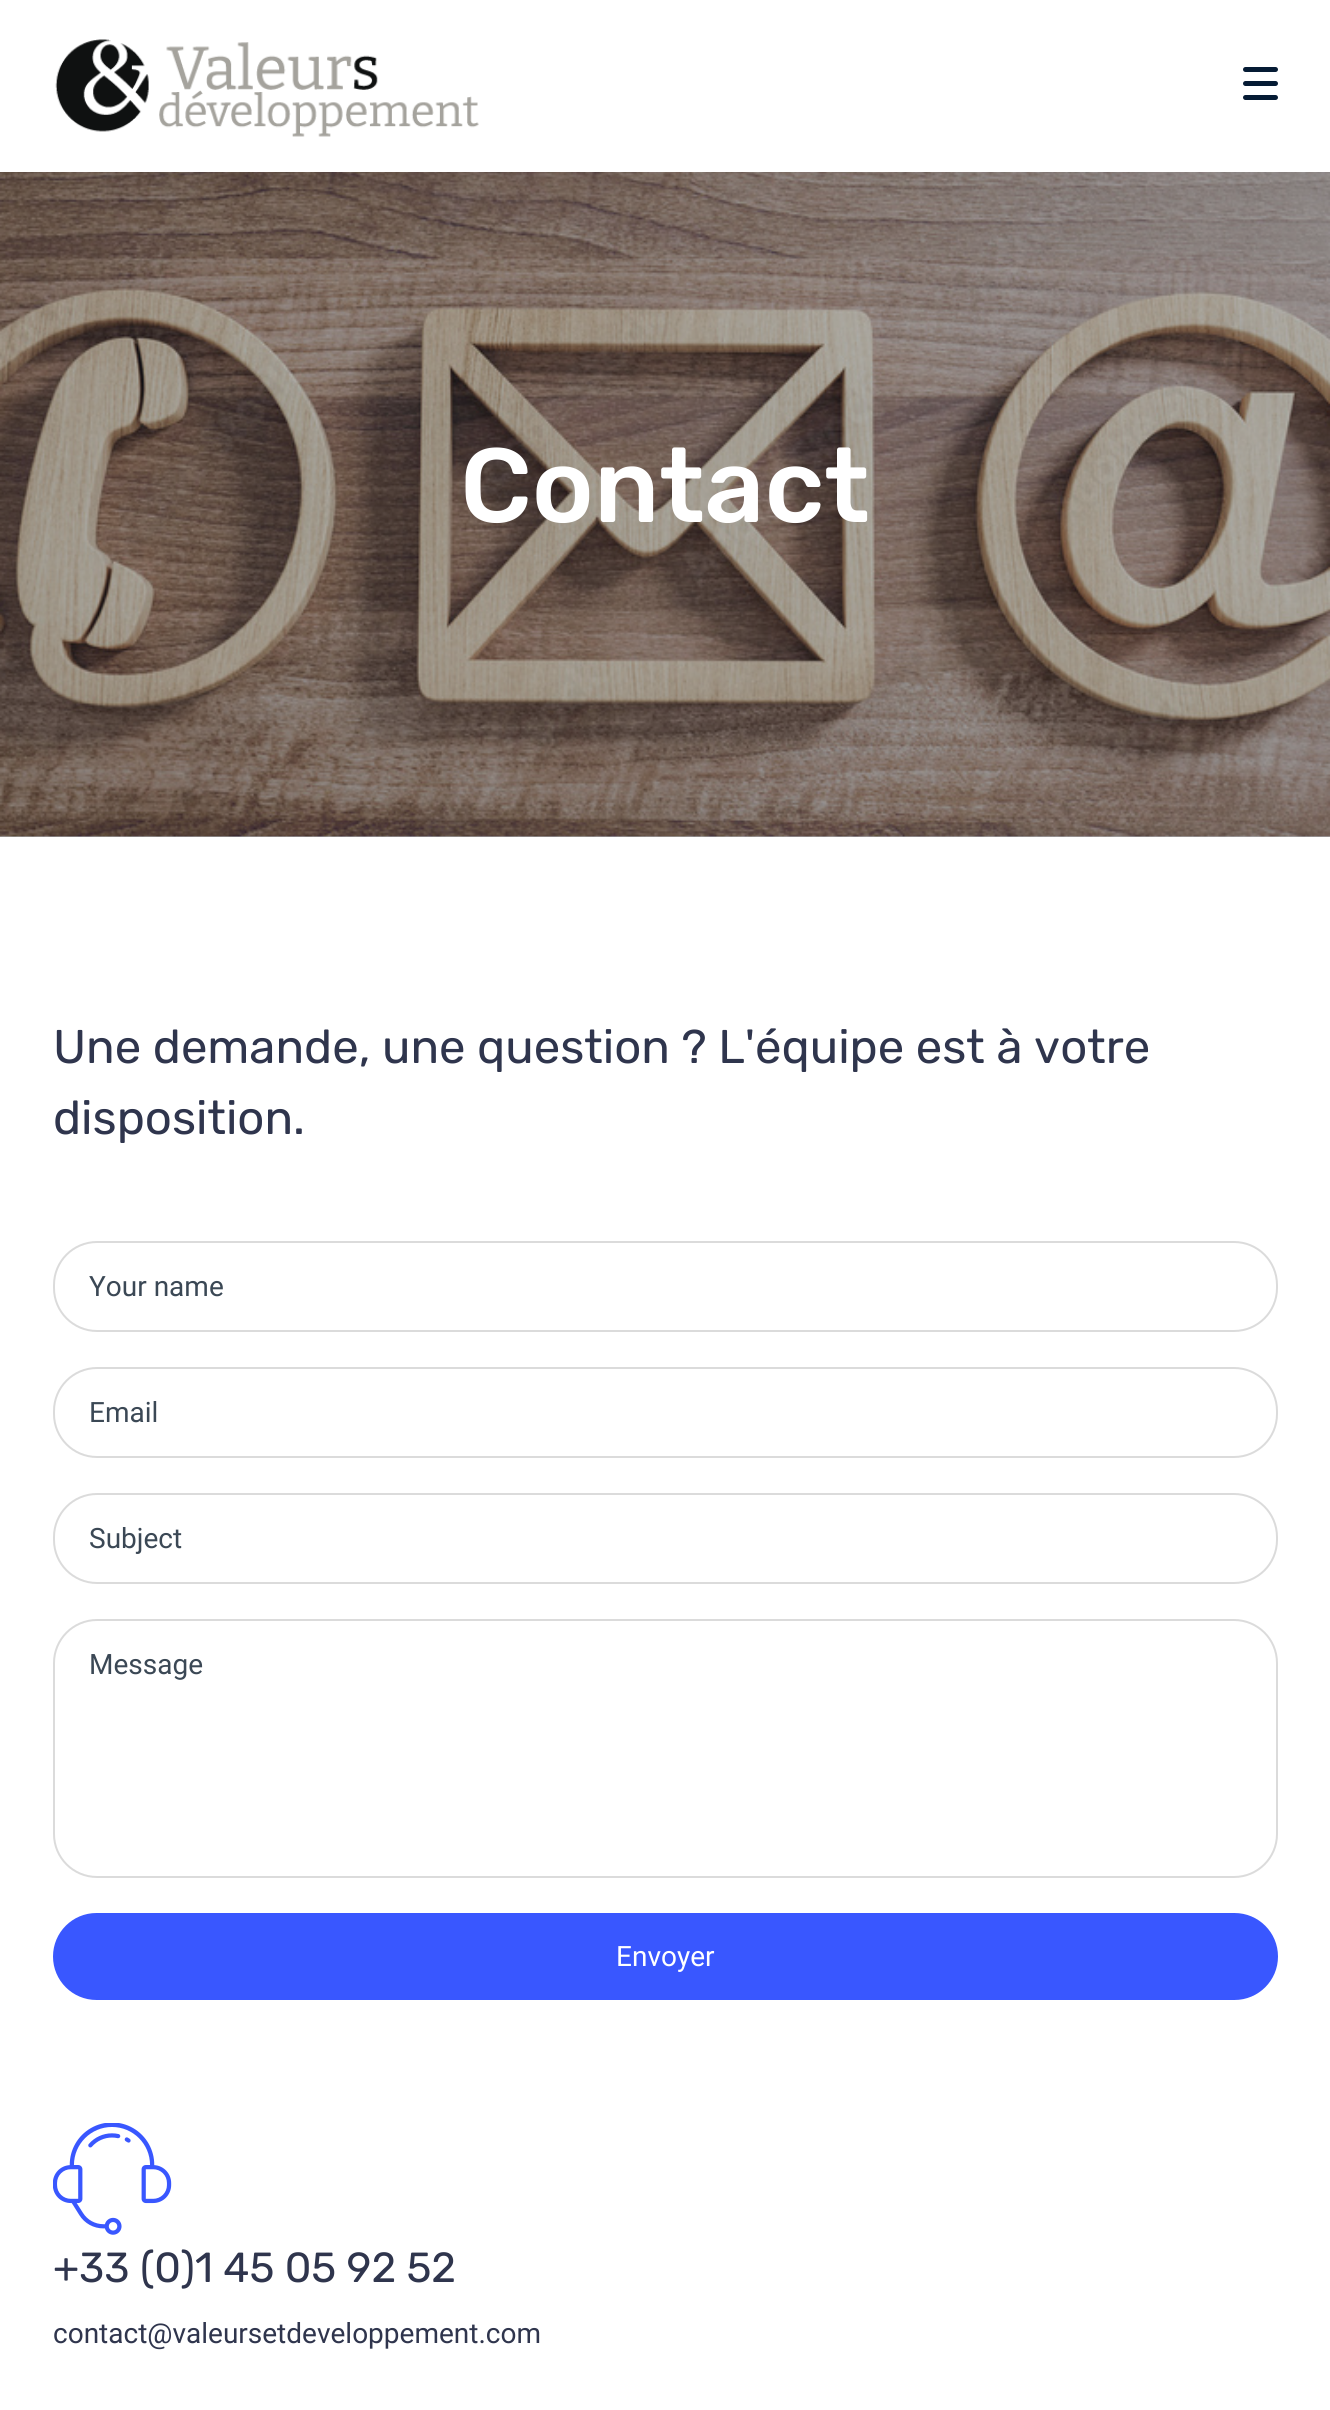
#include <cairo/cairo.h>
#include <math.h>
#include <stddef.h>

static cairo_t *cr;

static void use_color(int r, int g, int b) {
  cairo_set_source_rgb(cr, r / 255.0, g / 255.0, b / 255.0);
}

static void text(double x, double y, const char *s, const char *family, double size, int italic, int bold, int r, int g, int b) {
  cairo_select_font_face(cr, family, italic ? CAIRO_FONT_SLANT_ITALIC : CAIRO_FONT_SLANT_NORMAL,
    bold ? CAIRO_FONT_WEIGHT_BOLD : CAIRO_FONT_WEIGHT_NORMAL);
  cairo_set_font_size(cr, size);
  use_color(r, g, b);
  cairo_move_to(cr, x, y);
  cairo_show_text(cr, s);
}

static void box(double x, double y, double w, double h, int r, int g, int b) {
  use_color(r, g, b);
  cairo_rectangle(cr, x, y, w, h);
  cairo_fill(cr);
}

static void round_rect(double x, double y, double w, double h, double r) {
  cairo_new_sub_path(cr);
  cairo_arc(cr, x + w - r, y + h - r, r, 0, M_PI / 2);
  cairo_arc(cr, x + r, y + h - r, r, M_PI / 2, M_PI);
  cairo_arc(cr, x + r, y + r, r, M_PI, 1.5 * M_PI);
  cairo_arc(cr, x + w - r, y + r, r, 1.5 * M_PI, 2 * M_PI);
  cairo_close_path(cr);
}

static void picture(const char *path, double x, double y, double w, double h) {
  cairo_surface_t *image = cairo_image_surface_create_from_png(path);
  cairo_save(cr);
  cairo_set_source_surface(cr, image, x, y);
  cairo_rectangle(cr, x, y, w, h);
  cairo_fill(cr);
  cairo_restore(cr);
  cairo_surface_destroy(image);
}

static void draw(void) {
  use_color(255, 255, 255);
  cairo_paint(cr);
  box(0, 836, 1330, 1, 180, 187, 194);
  picture("img_01.png", 55, 39, 424, 98);
  use_color(5, 27, 52);
  round_rect(1243, 81, 35, 5, 2.5);
  cairo_fill(cr);
  round_rect(1243, 67, 35, 5, 2.5);
  cairo_fill(cr);
  round_rect(1243, 95, 35, 5, 2.5);
  cairo_fill(cr);
  picture("img_02.png", 0, 172, 1330, 665);
  round_rect(54, 1242, 1223, 89, 43);
  use_color(219, 219, 219);
  cairo_stroke(cr);
  round_rect(54, 1368, 1223, 89, 43);
  cairo_stroke(cr);
  round_rect(54, 1494, 1223, 89, 43);
  cairo_stroke(cr);
  round_rect(54, 1620, 1223, 257, 43);
  cairo_stroke(cr);
  use_color(57, 87, 255);
  round_rect(54, 1914, 1223, 85, 42.5);
  cairo_fill_preserve(cr);
  cairo_stroke(cr);
  picture("img_03.png", 53, 2123, 119, 112);
  text(460, 522, "Contact", "Rubik Medium", 105, 0, 0, 255, 255, 255);
  text(53, 1063, "Une demande, une question ? L'équipe est à votre", "Rubik", 47.25, 0, 0, 47, 53, 77);
  text(53, 1134, "disposition.", "Rubik", 47.25, 0, 0, 47, 53, 77);
  text(89, 1296, "Your name", "Roboto", 28, 0, 0, 59, 72, 85);
  text(89, 1422, "Email", "Roboto", 28, 0, 0, 59, 72, 85);
  text(89, 1548, "Subject", "Roboto", 28, 0, 0, 59, 72, 85);
  text(89, 1674, "Message", "Roboto", 28, 0, 0, 59, 72, 85);
  text(616, 1966, "Envoyer", "Roboto", 28, 0, 0, 255, 255, 255);
  text(53, 2282, "+33 (0)1 45 05 92 52", "Rubik", 42, 0, 0, 47, 53, 77);
  text(53, 2343, "contact@valeursetdeveloppement.com", "Roboto", 28, 0, 0, 47, 53, 77);
}

int main(void) {
  cairo_surface_t *surface = cairo_image_surface_create(CAIRO_FORMAT_RGB24, 1330, 2410);
  cr = cairo_create(surface);
  cairo_font_options_t *options = cairo_font_options_create();
  cairo_font_options_set_hint_metrics(options, CAIRO_HINT_METRICS_OFF);
  cairo_font_options_set_hint_style(options, CAIRO_HINT_STYLE_NONE);
  cairo_set_font_options(cr, options);
  cairo_set_miter_limit(cr, 4);
  draw();
  cairo_surface_write_to_png(surface, "out.png");
  cairo_font_options_destroy(options);
  cairo_destroy(cr);
  cairo_surface_destroy(surface);
  return 0;
}
